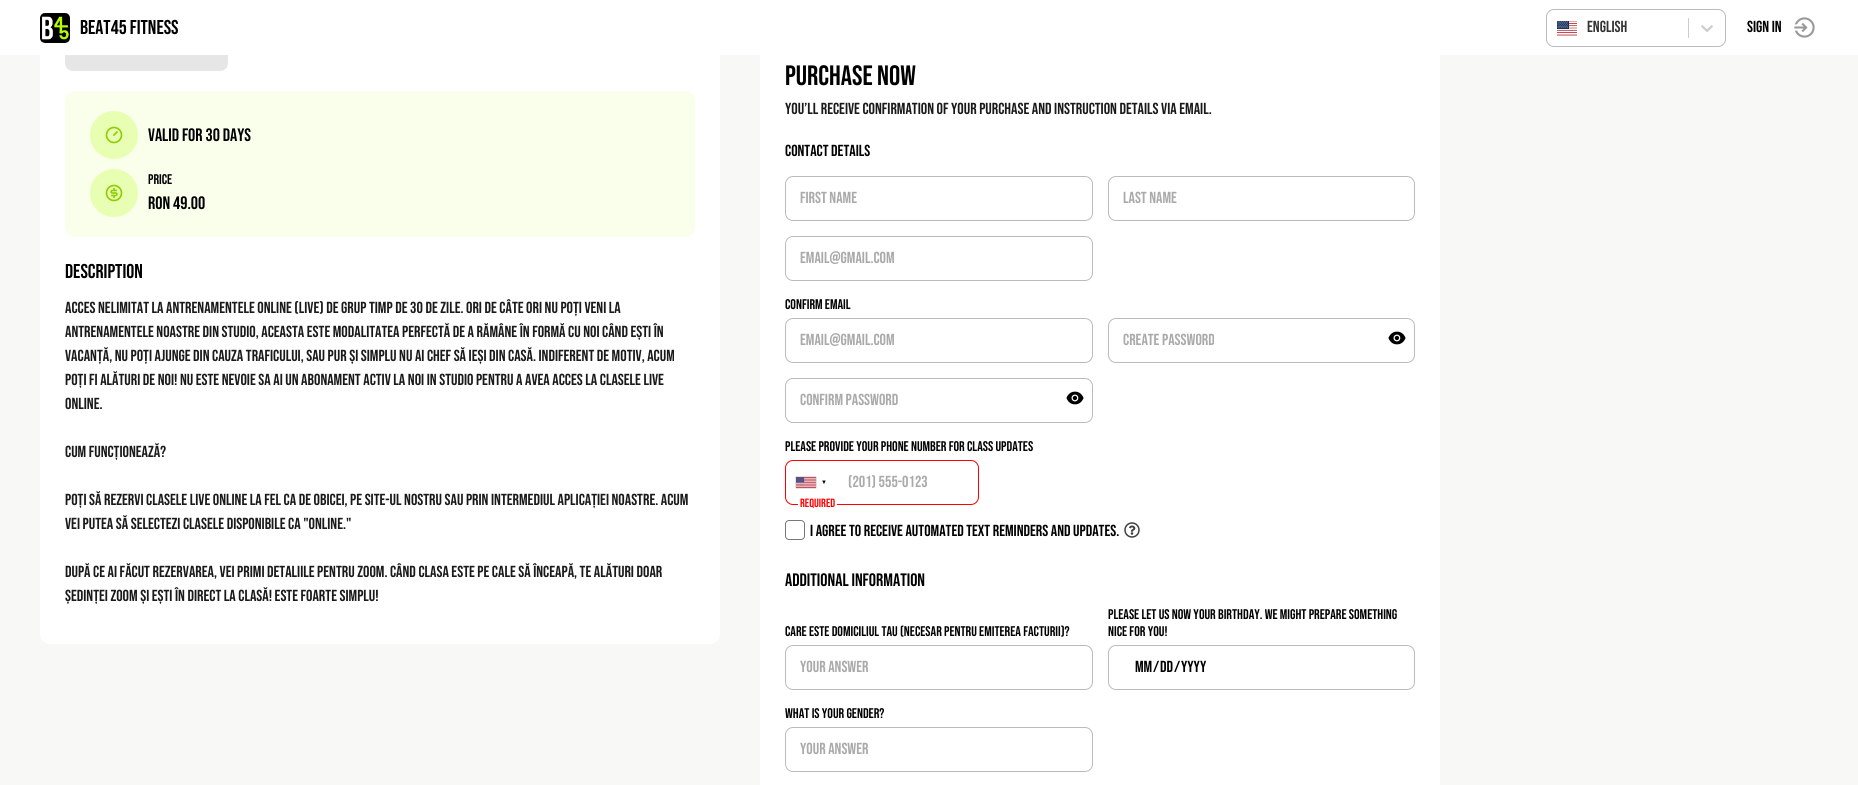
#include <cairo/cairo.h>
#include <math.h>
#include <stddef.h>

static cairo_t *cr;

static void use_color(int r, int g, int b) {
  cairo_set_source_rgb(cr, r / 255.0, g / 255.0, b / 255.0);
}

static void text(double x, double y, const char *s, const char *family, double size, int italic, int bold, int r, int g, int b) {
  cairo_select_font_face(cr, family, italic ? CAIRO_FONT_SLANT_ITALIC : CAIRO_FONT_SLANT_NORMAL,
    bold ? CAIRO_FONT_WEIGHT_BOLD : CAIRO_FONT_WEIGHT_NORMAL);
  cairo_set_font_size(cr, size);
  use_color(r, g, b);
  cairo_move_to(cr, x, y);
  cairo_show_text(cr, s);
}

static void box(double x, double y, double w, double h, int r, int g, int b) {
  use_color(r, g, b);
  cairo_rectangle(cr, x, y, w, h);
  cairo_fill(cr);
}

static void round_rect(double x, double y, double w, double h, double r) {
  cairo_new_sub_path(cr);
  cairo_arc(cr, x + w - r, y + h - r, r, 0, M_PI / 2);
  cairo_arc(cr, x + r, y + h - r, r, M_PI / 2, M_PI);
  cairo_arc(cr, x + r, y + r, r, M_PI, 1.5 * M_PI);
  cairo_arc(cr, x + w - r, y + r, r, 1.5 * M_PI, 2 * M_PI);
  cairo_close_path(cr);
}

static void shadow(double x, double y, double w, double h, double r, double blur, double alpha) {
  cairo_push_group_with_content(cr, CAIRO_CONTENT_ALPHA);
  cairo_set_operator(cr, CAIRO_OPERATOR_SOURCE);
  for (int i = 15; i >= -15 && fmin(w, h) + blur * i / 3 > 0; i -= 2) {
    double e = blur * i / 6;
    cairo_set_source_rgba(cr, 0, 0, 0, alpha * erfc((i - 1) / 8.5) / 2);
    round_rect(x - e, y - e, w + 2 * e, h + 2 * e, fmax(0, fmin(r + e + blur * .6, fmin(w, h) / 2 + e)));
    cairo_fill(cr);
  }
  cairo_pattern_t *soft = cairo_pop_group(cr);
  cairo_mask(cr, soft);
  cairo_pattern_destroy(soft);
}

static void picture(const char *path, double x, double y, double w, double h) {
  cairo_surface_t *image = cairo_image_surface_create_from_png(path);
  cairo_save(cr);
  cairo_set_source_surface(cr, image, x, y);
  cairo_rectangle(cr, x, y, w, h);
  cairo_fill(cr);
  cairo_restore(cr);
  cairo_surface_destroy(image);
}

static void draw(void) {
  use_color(248, 249, 246);
  cairo_paint(cr);
  use_color(255, 255, 255);
  round_rect(40, -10, 680, 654, 10);
  cairo_fill(cr);
  use_color(230, 230, 230);
  round_rect(65, 26, 163, 45, 8);
  cairo_fill(cr);
  box(0, 0, 1858, 55, 255, 255, 255);
  picture("img_01.png", 40, 13, 30, 30);
  round_rect(1546.5, 9.5, 179, 37, 7.5);
  use_color(187, 187, 187);
  cairo_set_line_width(cr, 1);
  cairo_stroke(cr);
  picture("img_02.png", 1557, 21, 20, 15);
  box(1688, 18, 1, 20, 204, 204, 204);
  picture("img_03.png", 1701, 25, 12, 7);
  picture("img_04.png", 1794, 17, 21, 21);
  use_color(249, 255, 235);
  round_rect(65, 91, 630, 146, 10);
  cairo_fill(cr);
  use_color(232, 255, 179);
  cairo_arc(cr, 114, 135, 24, 0, 2 * M_PI);
  cairo_fill(cr);
  picture("img_05.png", 105, 126, 18, 18);
  cairo_arc(cr, 114, 193, 24, 0, 2 * M_PI);
  cairo_fill(cr);
  picture("img_06.png", 105, 184, 18, 18);
  box(760, 55, 680, 730, 255, 255, 255);
  round_rect(785.5, 176.5, 307, 44, 7.5);
  use_color(187, 187, 187);
  cairo_stroke(cr);
  round_rect(1108.5, 176.5, 306, 44, 7.5);
  cairo_stroke(cr);
  round_rect(785.5, 236.5, 307, 44, 7.5);
  cairo_stroke(cr);
  round_rect(785.5, 318.5, 307, 44, 7.5);
  cairo_stroke(cr);
  round_rect(1108.5, 318.5, 306, 44, 7.5);
  cairo_stroke(cr);
  picture("img_07.png", 1388, 331, 18, 14);
  round_rect(785.5, 378.5, 307, 44, 7.5);
  cairo_stroke(cr);
  picture("img_07.png", 1066, 391, 18, 14);
  round_rect(785.5, 460.5, 193, 44, 7.5);
  use_color(255, 0, 0);
  cairo_stroke(cr);
  use_color(136, 136, 136);
  shadow(796, 477, 20, 11, 0, 0.5, 1);
  picture("img_08.png", 796, 477, 20, 11);
  box(798, 504, 39, 1, 255, 255, 255);
  round_rect(785.5, 520.5, 19, 19, 3.5);
  use_color(119, 119, 119);
  cairo_stroke(cr);
  picture("img_09.png", 1124, 522, 16, 16);
  round_rect(785.5, 645.5, 307, 44, 7.5);
  use_color(187, 187, 187);
  cairo_stroke(cr);
  round_rect(1108.5, 645.5, 306, 44, 7.5);
  cairo_stroke(cr);
  round_rect(785.5, 727.5, 307, 44, 7.5);
  cairo_stroke(cr);
  text(80, 34, "BEAT45 Fitness", "Bebas Neue", 20, 0, 0, 0, 0, 0);
  text(1587, 32, "English", "Bebas Neue", 16, 0, 0, 51, 51, 51);
  text(1747, 32, "Sign in", "Bebas Neue", 16, 0, 0, 0, 0, 0);
  text(148, 141, "Valid for 30 days", "Bebas Neue", 18, 0, 0, 0, 0, 0);
  text(148, 184, "Price", "Bebas Neue", 14, 0, 0, 0, 0, 0);
  text(148, 209, "RON 49.00", "Bebas Neue", 18, 0, 0, 0, 0, 0);
  text(65, 278, "Description", "Bebas Neue", 20, 0, 0, 0, 0, 0);
  text(65, 313, "Acces nelimitat la antrenamentele online (live) de grup timp de 30 de zile. Ori de câte ori nu poți veni la", "Bebas Neue", 16, 0, 0, 26, 26, 26);
  text(65, 337, "antrenamentele noastre din studio, aceasta este modalitatea perfectă de a rămâne în formă cu noi când ești în", "Bebas Neue", 16, 0, 0, 26, 26, 26);
  text(65, 361, "vacanță, nu poți ajunge din cauza traficului, sau pur și simplu nu ai chef să ieși din casă. Indiferent de motiv, acum", "Bebas Neue", 16, 0, 0, 26, 26, 26);
  text(65, 385, "poți fi alături de noi! Nu este nevoie sa ai un abonament activ la noi in studio pentru a avea acces la clasele LIVE", "Bebas Neue", 16, 0, 0, 26, 26, 26);
  text(65, 409, "ONLINE.", "Bebas Neue", 16, 0, 0, 26, 26, 26);
  text(65, 457, "CUM FUNCȚIONEAZĂ?", "Bebas Neue", 16, 0, 0, 26, 26, 26);
  text(65, 505, "Poți să rezervi clasele live online la fel ca de obicei, pe site-ul nostru sau prin intermediul aplicației noastre. Acum", "Bebas Neue", 16, 0, 0, 26, 26, 26);
  text(65, 529, "vei putea să selectezi clasele disponibile ca \"online.\"", "Bebas Neue", 16, 0, 0, 26, 26, 26);
  text(65, 577, "După ce ai făcut rezervarea, vei primi detaliile pentru ZOOM. Când clasa este pe cale să înceapă, te alături doar", "Bebas Neue", 16, 0, 0, 26, 26, 26);
  text(65, 601, "ședinței ZOOM și ești în direct la clasă! Este foarte simplu!", "Bebas Neue", 16, 0, 0, 26, 26, 26);
  text(785, 85, "Purchase Now", "Bebas Neue", 28, 0, 0, 0, 0, 0);
  text(785, 114, "You’ll receive confirmation of your purchase and instruction details via email.", "Bebas Neue", 16, 0, 0, 26, 26, 26);
  text(785, 156, "Contact Details", "Bebas Neue", 16, 0, 0, 0, 0, 0);
  text(800, 203, "First Name", "Bebas Neue", 16, 0, 0, 170, 170, 170);
  text(1123, 203, "Last Name", "Bebas Neue", 16, 0, 0, 170, 170, 170);
  text(800, 263, "email@gmail.com", "Bebas Neue", 16, 0, 0, 170, 170, 170);
  text(785, 309, "Confirm Email", "Bebas Neue", 14, 0, 0, 0, 0, 0);
  text(800, 345, "email@gmail.com", "Bebas Neue", 16, 0, 0, 170, 170, 170);
  text(1123, 345, "Create password", "Bebas Neue", 16, 0, 0, 170, 170, 170);
  text(800, 405, "Confirm password", "Bebas Neue", 16, 0, 0, 170, 170, 170);
  text(785, 451, "Please provide your phone number for class updates", "Bebas Neue", 14, 0, 0, 0, 0, 0);
  text(821, 484, "▼", "Liberation Sans", 6, 0, 0, 0, 0, 0);
  text(848, 487, "(201) 555-0123", "Bebas Neue", 16, 0, 0, 170, 170, 170);
  text(800, 507, "Required", "Bebas Neue", 12, 0, 0, 255, 0, 0);
  text(810, 536, "I agree to receive automated text reminders and updates.", "Bebas Neue", 16, 0, 0, 0, 0, 0);
  text(785, 586, "Additional information", "Bebas Neue", 18, 0, 0, 0, 0, 0);
  text(785, 636, "Care este domiciliul tau (necesar pentru emiterea facturii)?", "Bebas Neue", 14, 0, 0, 0, 0, 0);
  text(800, 672, "Your answer", "Bebas Neue", 16, 0, 0, 170, 170, 170);
  text(1108, 619, "Please let us now your birthday. We might prepare something", "Bebas Neue", 14, 0, 0, 0, 0, 0);
  text(1108, 636, "nice for you!", "Bebas Neue", 14, 0, 0, 0, 0, 0);
  text(1135, 672, "mm", "Bebas Neue", 16, 0, 0, 0, 0, 0);
  text(1153, 672, "/", "Bebas Neue", 16, 0, 0, 0, 0, 0);
  text(1160, 672, "dd", "Bebas Neue", 16, 0, 0, 0, 0, 0);
  text(1174, 672, "/", "Bebas Neue", 16, 0, 0, 0, 0, 0);
  text(1181, 672, "yyyy", "Bebas Neue", 16, 0, 0, 0, 0, 0);
  text(785, 718, "What is your gender?", "Bebas Neue", 14, 0, 0, 0, 0, 0);
  text(800, 754, "Your answer", "Bebas Neue", 16, 0, 0, 170, 170, 170);
}

int main(void) {
  cairo_surface_t *surface = cairo_image_surface_create(CAIRO_FORMAT_RGB24, 1858, 785);
  cr = cairo_create(surface);
  cairo_font_options_t *options = cairo_font_options_create();
  cairo_font_options_set_hint_metrics(options, CAIRO_HINT_METRICS_OFF);
  cairo_font_options_set_hint_style(options, CAIRO_HINT_STYLE_NONE);
  cairo_set_font_options(cr, options);
  cairo_set_miter_limit(cr, 4);
  draw();
  cairo_surface_write_to_png(surface, "out.png");
  cairo_font_options_destroy(options);
  cairo_destroy(cr);
  cairo_surface_destroy(surface);
  return 0;
}
